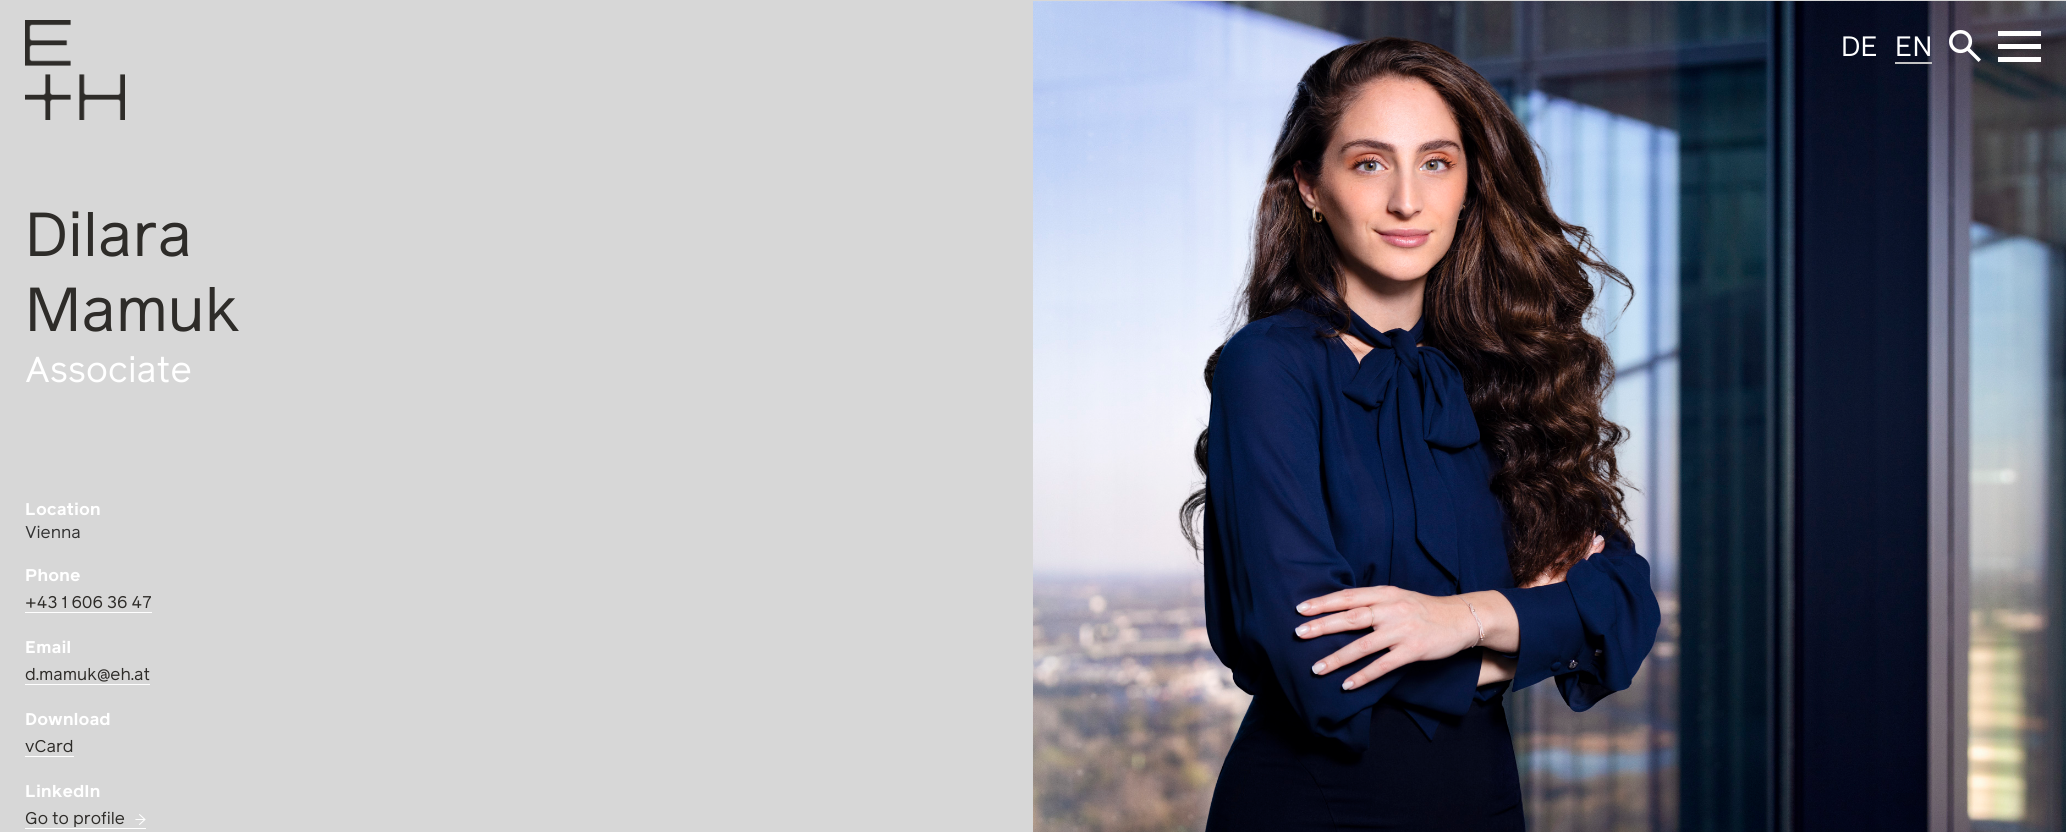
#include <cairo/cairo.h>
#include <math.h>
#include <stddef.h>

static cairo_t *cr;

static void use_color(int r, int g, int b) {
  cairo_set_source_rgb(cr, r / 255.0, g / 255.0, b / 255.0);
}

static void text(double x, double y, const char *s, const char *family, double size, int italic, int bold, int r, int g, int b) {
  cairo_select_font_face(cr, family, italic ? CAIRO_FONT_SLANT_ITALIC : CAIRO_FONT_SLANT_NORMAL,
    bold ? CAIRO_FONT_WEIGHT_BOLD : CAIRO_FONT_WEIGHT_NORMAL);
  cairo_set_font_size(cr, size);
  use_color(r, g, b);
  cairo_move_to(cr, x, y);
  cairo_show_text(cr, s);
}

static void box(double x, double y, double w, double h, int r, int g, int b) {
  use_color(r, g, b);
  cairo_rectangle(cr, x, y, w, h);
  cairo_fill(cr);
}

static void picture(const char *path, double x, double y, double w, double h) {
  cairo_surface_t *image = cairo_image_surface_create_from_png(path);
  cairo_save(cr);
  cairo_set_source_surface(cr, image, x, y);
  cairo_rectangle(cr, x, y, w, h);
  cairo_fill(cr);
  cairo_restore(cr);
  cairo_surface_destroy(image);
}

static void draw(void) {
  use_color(215, 215, 215);
  cairo_paint(cr);
  picture("img_01.png", 25, 20, 100, 100);
  picture("img_04.png", 1033, 1, 1033, 831);
  box(1998, 57, 43, 5, 255, 255, 255);
  box(1998, 44, 43, 5, 255, 255, 255);
  box(1998, 31, 43, 5, 255, 255, 255);
  box(1895, 62, 37, 2, 195, 195, 195);
  picture("img_02.png", 1949, 30, 32, 32);
  box(25, 612, 127, 1, 255, 255, 255);
  box(25, 684, 125, 1, 255, 255, 255);
  box(25, 756, 49, 1, 255, 255, 255);
  box(25, 828, 121, 1, 255, 255, 255);
  picture("img_03.png", 135, 814, 11, 11);
  text(1841, 56, "DE", "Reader", 28, 0, 0, 255, 255, 255);
  text(1895, 56, "EN", "Reader", 28, 0, 0, 255, 255, 255);
  text(25, 256, "Dilara", "Reader", 62, 0, 0, 46, 44, 41);
  text(25, 331, "Mamuk", "Reader", 62, 0, 0, 46, 44, 41);
  text(25, 382, "Associate", "Reader", 36, 0, 0, 255, 255, 255);
  text(25, 515, "Location", "Reader", 17, 0, 1, 255, 255, 255);
  text(25, 538, "Vienna", "Reader", 17, 0, 0, 51, 51, 51);
  text(25, 581, "Phone", "Reader", 17, 0, 1, 255, 255, 255);
  text(25, 608, "+43 1 606 36 47", "Reader", 17, 0, 0, 46, 44, 41);
  text(25, 653, "Email", "Reader", 17, 0, 1, 255, 255, 255);
  text(25, 680, "d.mamuk@eh.at", "Reader", 17, 0, 0, 46, 44, 41);
  text(25, 725, "Download", "Reader", 17, 0, 1, 255, 255, 255);
  text(25, 752, "vCard", "Reader", 17, 0, 0, 46, 44, 41);
  text(25, 797, "LinkedIn", "Reader", 17, 0, 1, 255, 255, 255);
  text(25, 824, "Go to profile", "Reader", 17, 0, 0, 46, 44, 41);
}

int main(void) {
  cairo_surface_t *surface = cairo_image_surface_create(CAIRO_FORMAT_RGB24, 2066, 832);
  cr = cairo_create(surface);
  cairo_font_options_t *options = cairo_font_options_create();
  cairo_font_options_set_hint_metrics(options, CAIRO_HINT_METRICS_OFF);
  cairo_font_options_set_hint_style(options, CAIRO_HINT_STYLE_NONE);
  cairo_set_font_options(cr, options);
  cairo_set_miter_limit(cr, 4);
  draw();
  cairo_surface_write_to_png(surface, "out.png");
  cairo_font_options_destroy(options);
  cairo_destroy(cr);
  cairo_surface_destroy(surface);
  return 0;
}
